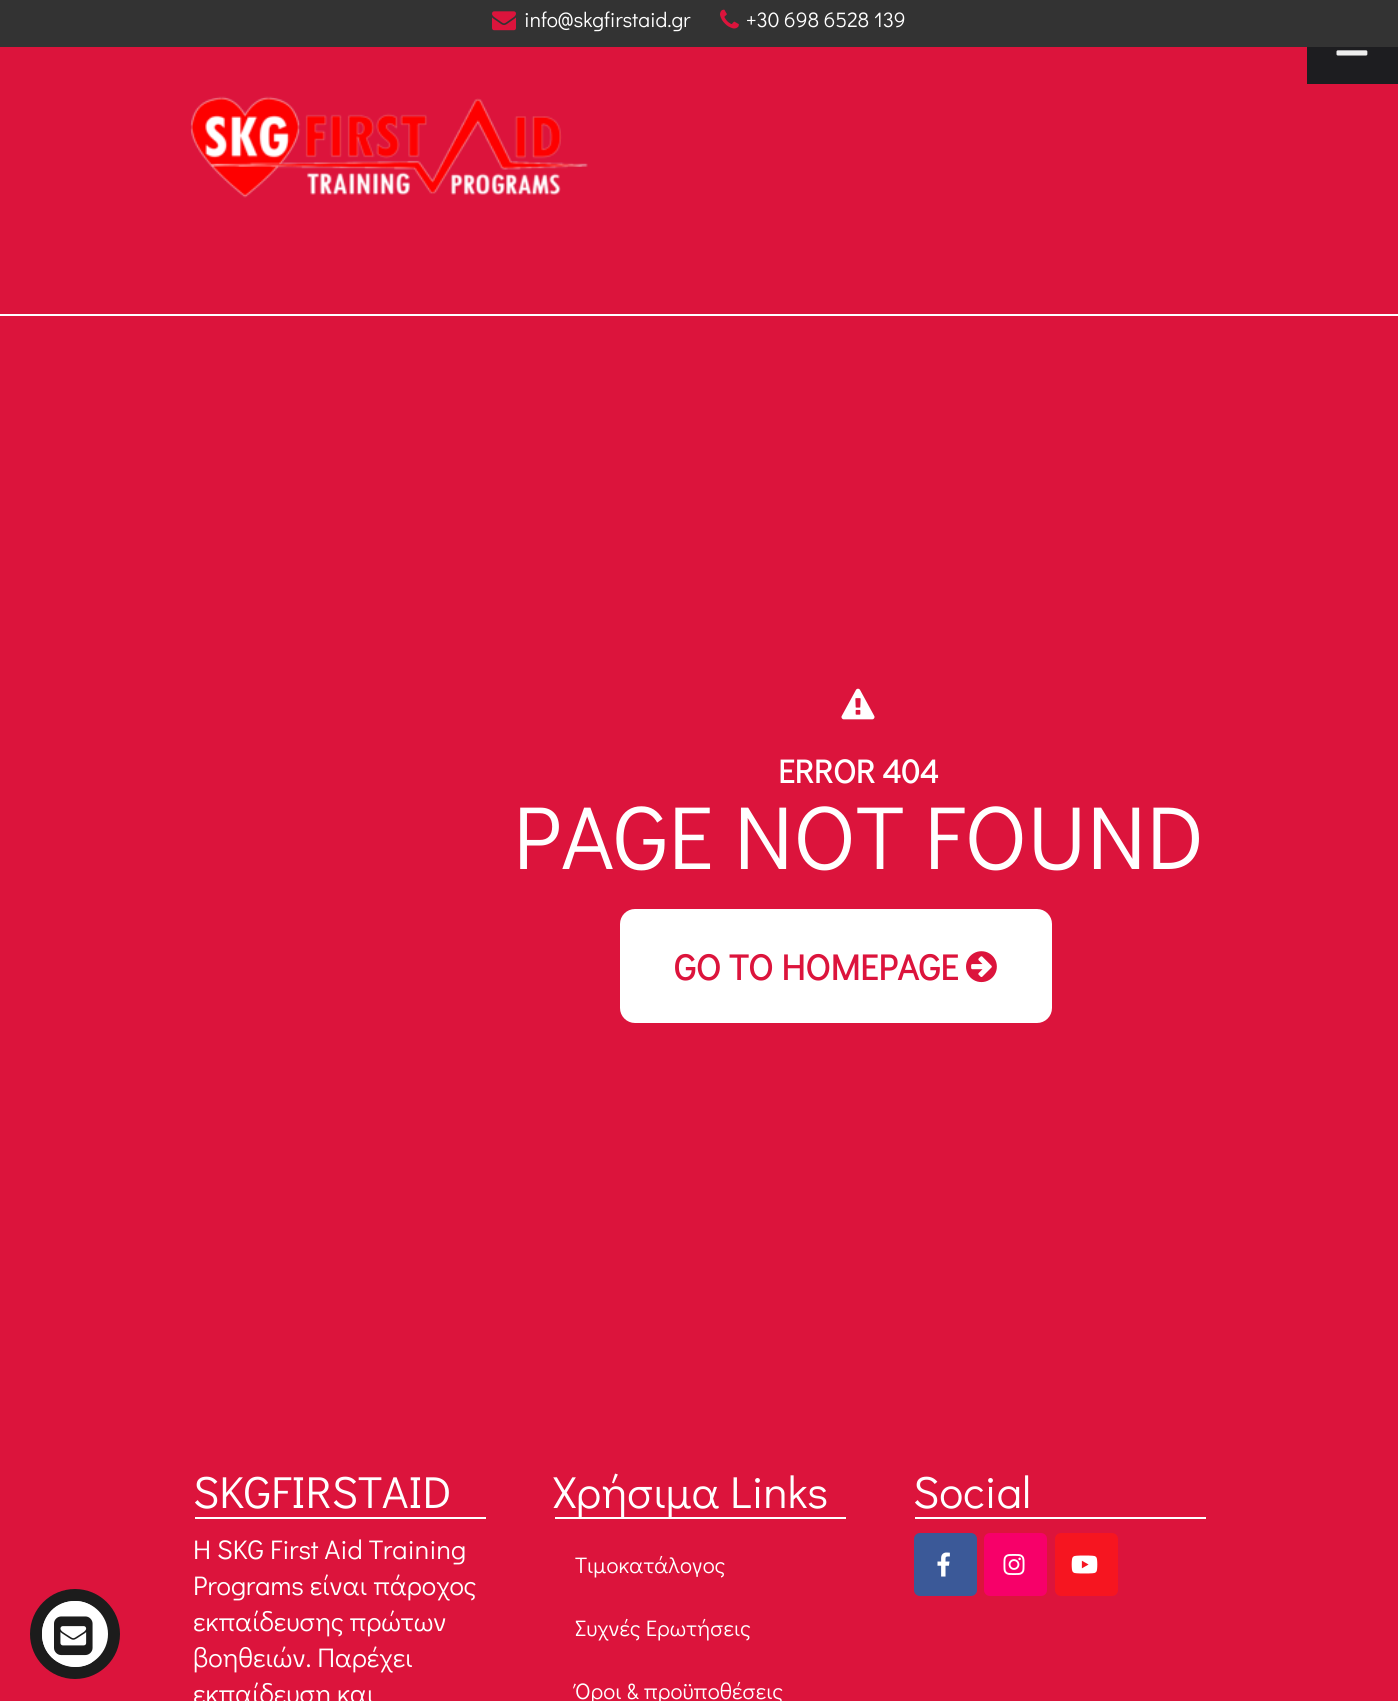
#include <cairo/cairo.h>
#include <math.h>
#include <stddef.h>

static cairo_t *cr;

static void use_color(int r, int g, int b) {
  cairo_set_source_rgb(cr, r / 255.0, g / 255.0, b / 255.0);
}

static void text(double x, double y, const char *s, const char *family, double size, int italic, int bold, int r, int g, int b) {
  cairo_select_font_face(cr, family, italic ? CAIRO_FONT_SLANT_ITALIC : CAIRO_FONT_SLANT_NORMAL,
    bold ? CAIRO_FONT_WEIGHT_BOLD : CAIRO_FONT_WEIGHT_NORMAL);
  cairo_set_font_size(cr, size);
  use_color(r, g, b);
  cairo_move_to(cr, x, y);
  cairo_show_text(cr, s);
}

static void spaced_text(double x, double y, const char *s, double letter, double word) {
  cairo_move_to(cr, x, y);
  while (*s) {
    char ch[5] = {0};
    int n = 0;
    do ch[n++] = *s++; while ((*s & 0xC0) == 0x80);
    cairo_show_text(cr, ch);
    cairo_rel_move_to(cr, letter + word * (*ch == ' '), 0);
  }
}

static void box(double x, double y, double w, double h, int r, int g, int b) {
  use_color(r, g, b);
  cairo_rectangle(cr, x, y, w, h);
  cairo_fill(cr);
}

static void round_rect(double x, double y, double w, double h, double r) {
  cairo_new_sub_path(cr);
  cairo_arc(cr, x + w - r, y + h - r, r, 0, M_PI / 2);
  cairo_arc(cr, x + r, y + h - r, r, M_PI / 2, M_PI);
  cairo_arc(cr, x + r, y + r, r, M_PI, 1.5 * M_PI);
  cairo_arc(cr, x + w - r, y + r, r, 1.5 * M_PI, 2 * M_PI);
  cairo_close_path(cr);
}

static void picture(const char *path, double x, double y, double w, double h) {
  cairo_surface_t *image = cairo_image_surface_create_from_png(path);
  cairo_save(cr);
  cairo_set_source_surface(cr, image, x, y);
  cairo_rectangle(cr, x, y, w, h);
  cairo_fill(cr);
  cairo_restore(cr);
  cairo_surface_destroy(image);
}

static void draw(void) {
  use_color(220, 20, 60);
  cairo_paint(cr);
  box(0, 0, 1398, 47, 51, 51, 51);
  picture("img_01.png", 492, 11, 24, 20);
  picture("img_02.png", 720, 9, 19, 20);
  box(1307, 47, 91, 37, 29, 29, 32);
  picture("img_03.png", 1336, 50, 32, 6);
  box(0, 314, 1398, 2, 255, 255, 255);
  picture("img_04.png", 190, 96, 398, 102);
  picture("img_05.png", 841, 688, 34, 32);
  round_rect(621, 910, 430, 112, 14);
  cairo_fill_preserve(cr);
  cairo_stroke(cr);
  picture("img_06.png", 966, 951, 31, 32);
  use_color(28, 28, 28);
  cairo_arc(cr, 75, 1634, 45, 0, 2 * M_PI);
  cairo_fill(cr);
  use_color(255, 255, 255);
  cairo_arc(cr, 75, 1634, 33, 0, 2 * M_PI);
  cairo_fill(cr);
  cairo_new_path(cr);
  cairo_move_to(cr, 75, 1601);
  cairo_curve_to(cr, 107, 1601, 115, 1645, 91, 1663);
  cairo_curve_to(cr, 86, 1666, 80, 1667, 75, 1667);
  cairo_curve_to(cr, 28, 1663, 34, 1601, 75, 1601);
  cairo_close_path(cr);
  cairo_fill(cr);
  picture("img_07.png", 54, 1616, 39, 40);
  box(195, 1517, 291, 2, 255, 255, 255);
  box(555, 1517, 291, 2, 255, 255, 255);
  box(915, 1517, 291, 2, 255, 255, 255);
  use_color(59, 89, 152);
  round_rect(914, 1533, 63, 63, 6);
  cairo_fill(cr);
  picture("img_08.png", 937, 1552, 13, 25);
  use_color(247, 0, 105);
  round_rect(984, 1533, 63, 63, 6);
  cairo_fill(cr);
  picture("img_09.png", 1003, 1554, 22, 21);
  use_color(246, 21, 32);
  round_rect(1055, 1533, 63, 63, 6);
  cairo_fill(cr);
  picture("img_10.png", 1071, 1555, 27, 19);
  text(524, 27, "info@skgfirstaid.gr", "Didact Gothic", 21, 0, 0, 255, 255, 255);
  text(746, 27, "+30 698 6528 139", "Didact Gothic", 21, 0, 0, 255, 255, 255);
  text(778, 783, "ERROR 404", "Didact Gothic", 33, 0, 1, 255, 255, 255);
  text(513, 869, "PAGE NOT FOUND", "Didact Gothic", 90, 0, 0, 255, 255, 255);
  text(674, 980, "GO TO HOMEPAGE", "Didact Gothic", 36, 0, 1, 220, 20, 60);
  text(193, 1508, "SKGFIRSTAID", "Didact Gothic", 45, 0, 0, 255, 255, 255);
  text(193, 1559, "Η SKG First Aid Training", "Didact Gothic", 27, 0, 0, 255, 255, 255);
  text(193, 1595, "Programs είναι πάροχος", "Didact Gothic", 27, 0, 0, 255, 255, 255);
  text(193, 1631, "εκπαίδευσης πρώτων", "Didact Gothic", 27, 0, 0, 255, 255, 255);
  text(193, 1667, "βοηθειών. Παρέχει", "Didact Gothic", 27, 0, 0, 255, 255, 255);
  text(193, 1703, "εκπαίδευση και", "Didact Gothic", 27, 0, 0, 255, 255, 255);
  text(553, 1508, "Χρήσιμα Links", "Didact Gothic", 45, 0, 0, 255, 255, 255);
  cairo_set_font_size(cr, 22.5);
  spaced_text(575, 1573, "Τιμοκατάλογος", 0.1, 0);
  spaced_text(575, 1636, "Συχνές Ερωτήσεις", 0.1, 0);
  spaced_text(575, 1699, "Όροι & προϋποθέσεις", 0.1, 0);
  text(913, 1508, "Social", "Didact Gothic", 45, 0, 0, 255, 255, 255);
}

int main(void) {
  cairo_surface_t *surface = cairo_image_surface_create(CAIRO_FORMAT_RGB24, 1398, 1701);
  cr = cairo_create(surface);
  cairo_font_options_t *options = cairo_font_options_create();
  cairo_font_options_set_hint_metrics(options, CAIRO_HINT_METRICS_OFF);
  cairo_font_options_set_hint_style(options, CAIRO_HINT_STYLE_NONE);
  cairo_set_font_options(cr, options);
  cairo_set_miter_limit(cr, 4);
  draw();
  cairo_surface_write_to_png(surface, "out.png");
  cairo_font_options_destroy(options);
  cairo_destroy(cr);
  cairo_surface_destroy(surface);
  return 0;
}
